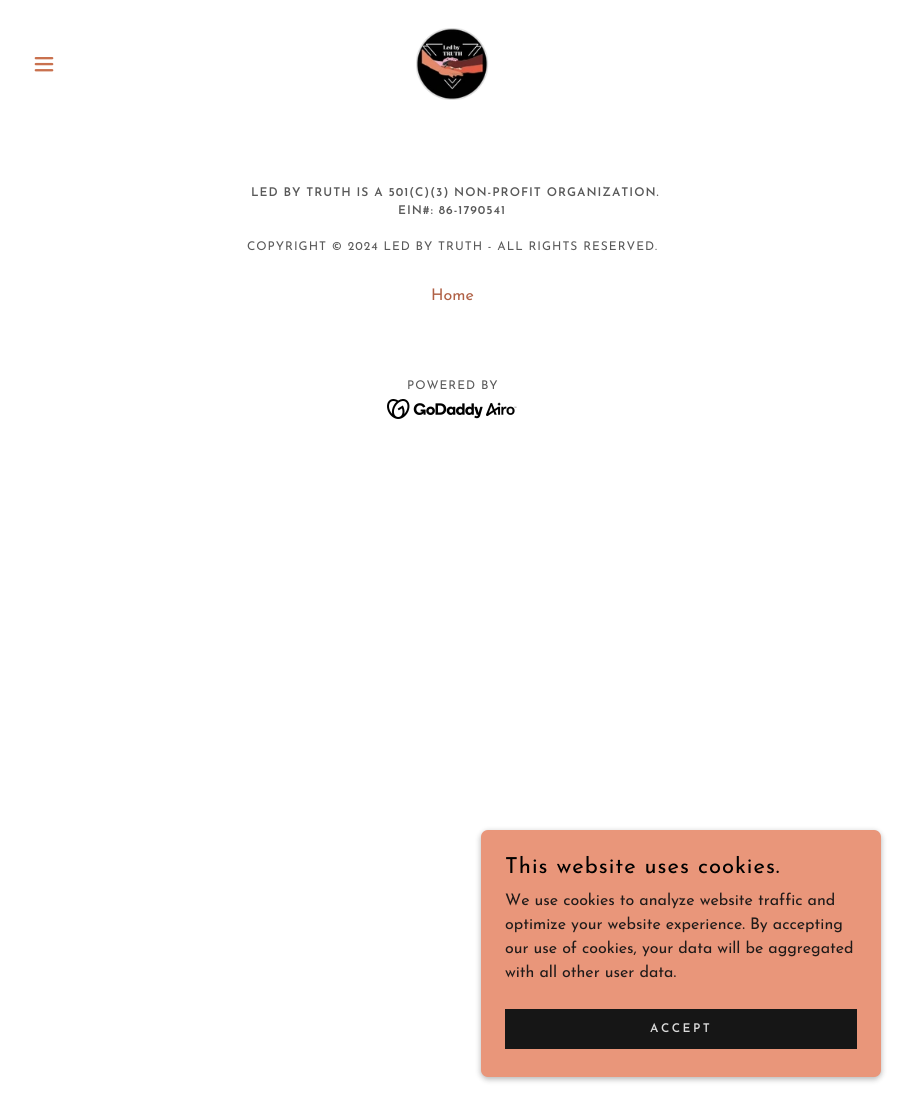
#include <cairo/cairo.h>
#include <math.h>
#include <stddef.h>

static cairo_t *cr;

static void use_color(int r, int g, int b) {
  cairo_set_source_rgb(cr, r / 255.0, g / 255.0, b / 255.0);
}

static void text(double x, double y, const char *s, const char *family, double size, int italic, int bold, int r, int g, int b) {
  cairo_select_font_face(cr, family, italic ? CAIRO_FONT_SLANT_ITALIC : CAIRO_FONT_SLANT_NORMAL,
    bold ? CAIRO_FONT_WEIGHT_BOLD : CAIRO_FONT_WEIGHT_NORMAL);
  cairo_set_font_size(cr, size);
  use_color(r, g, b);
  cairo_move_to(cr, x, y);
  cairo_show_text(cr, s);
}

static void spaced_text(double x, double y, const char *s, double letter, double word) {
  cairo_move_to(cr, x, y);
  while (*s) {
    char ch[5] = {0};
    int n = 0;
    do ch[n++] = *s++; while ((*s & 0xC0) == 0x80);
    cairo_show_text(cr, ch);
    cairo_rel_move_to(cr, letter + word * (*ch == ' '), 0);
  }
}

static void box(double x, double y, double w, double h, int r, int g, int b) {
  use_color(r, g, b);
  cairo_rectangle(cr, x, y, w, h);
  cairo_fill(cr);
}

static void round_rect(double x, double y, double w, double h, double r) {
  cairo_new_sub_path(cr);
  cairo_arc(cr, x + w - r, y + h - r, r, 0, M_PI / 2);
  cairo_arc(cr, x + r, y + h - r, r, M_PI / 2, M_PI);
  cairo_arc(cr, x + r, y + r, r, M_PI, 1.5 * M_PI);
  cairo_arc(cr, x + w - r, y + r, r, 1.5 * M_PI, 2 * M_PI);
  cairo_close_path(cr);
}

static void shadow(double x, double y, double w, double h, double r, double blur, double alpha) {
  cairo_push_group_with_content(cr, CAIRO_CONTENT_ALPHA);
  cairo_set_operator(cr, CAIRO_OPERATOR_SOURCE);
  for (int i = 15; i >= -15 && fmin(w, h) + blur * i / 3 > 0; i -= 2) {
    double e = blur * i / 6;
    cairo_set_source_rgba(cr, 0, 0, 0, alpha * erfc((i - 1) / 8.5) / 2);
    round_rect(x - e, y - e, w + 2 * e, h + 2 * e, fmax(0, fmin(r + e + blur * .6, fmin(w, h) / 2 + e)));
    cairo_fill(cr);
  }
  cairo_pattern_t *soft = cairo_pop_group(cr);
  cairo_mask(cr, soft);
  cairo_pattern_destroy(soft);
}

static void picture(const char *path, double x, double y, double w, double h) {
  cairo_surface_t *image = cairo_image_surface_create_from_png(path);
  cairo_save(cr);
  cairo_set_source_surface(cr, image, x, y);
  cairo_rectangle(cr, x, y, w, h);
  cairo_fill(cr);
  cairo_restore(cr);
  cairo_surface_destroy(image);
}

static void draw(void) {
  use_color(255, 255, 255);
  cairo_paint(cr);
  picture("img_01.png", 34, 57, 20, 15);
  picture("img_02.png", 416, 28, 73, 72);
  picture("img_03.png", 387, 399, 130, 20);
  use_color(0, 0, 0);
  shadow(481, 832, 400, 247, 7, 3, 0.3);
  use_color(233, 150, 122);
  round_rect(481, 830, 400, 247, 7);
  cairo_fill(cr);
  box(505, 1009, 352, 40, 22, 22, 22);
  cairo_select_font_face(cr, "Josefin Sans SemiBold", CAIRO_FONT_SLANT_NORMAL, CAIRO_FONT_WEIGHT_NORMAL);
  cairo_set_font_size(cr, 12);
  use_color(89, 89, 89);
  spaced_text(251, 196, "LED BY TRUTH IS A 501(C)(3) NON-PROFIT ORGANIZATION.", 1, 0);
  spaced_text(398, 214, "EIN#: 86-1790541", 1, 0);
  cairo_select_font_face(cr, "Josefin Sans", CAIRO_FONT_SLANT_NORMAL, CAIRO_FONT_WEIGHT_NORMAL);
  spaced_text(247, 250, "COPYRIGHT © 2024 LED BY TRUTH - ALL RIGHTS RESERVED.", 1, 0);
  text(431, 300, "Home", "Josefin Sans", 16, 0, 0, 176, 97, 70);
  cairo_set_font_size(cr, 12);
  use_color(89, 89, 89);
  spaced_text(407, 389, "POWERED BY", 1, 0);
  cairo_set_font_size(cr, 22);
  use_color(0, 0, 0);
  spaced_text(505, 873, "This website uses cookies.", 1, 0);
  text(505, 905, "We use cookies to analyze website traffic and", "Josefin Sans", 16, 0, 0, 31, 26, 25);
  text(505, 929, "optimize your website experience. By accepting", "Josefin Sans", 16, 0, 0, 31, 26, 25);
  text(505, 953, "our use of cookies, your data will be aggregated", "Josefin Sans", 16, 0, 0, 31, 26, 25);
  text(505, 977, "with all other user data.", "Josefin Sans", 16, 0, 0, 31, 26, 25);
  cairo_select_font_face(cr, "Josefin Sans SemiBold", CAIRO_FONT_SLANT_NORMAL, CAIRO_FONT_WEIGHT_NORMAL);
  cairo_set_font_size(cr, 12);
  use_color(219, 219, 219);
  spaced_text(650, 1032, "ACCEPT", 2.5, 0);
}

int main(void) {
  cairo_surface_t *surface = cairo_image_surface_create(CAIRO_FORMAT_RGB24, 905, 1101);
  cr = cairo_create(surface);
  cairo_font_options_t *options = cairo_font_options_create();
  cairo_font_options_set_hint_metrics(options, CAIRO_HINT_METRICS_OFF);
  cairo_font_options_set_hint_style(options, CAIRO_HINT_STYLE_NONE);
  cairo_set_font_options(cr, options);
  cairo_set_miter_limit(cr, 4);
  draw();
  cairo_surface_write_to_png(surface, "out.png");
  cairo_font_options_destroy(options);
  cairo_destroy(cr);
  cairo_surface_destroy(surface);
  return 0;
}
